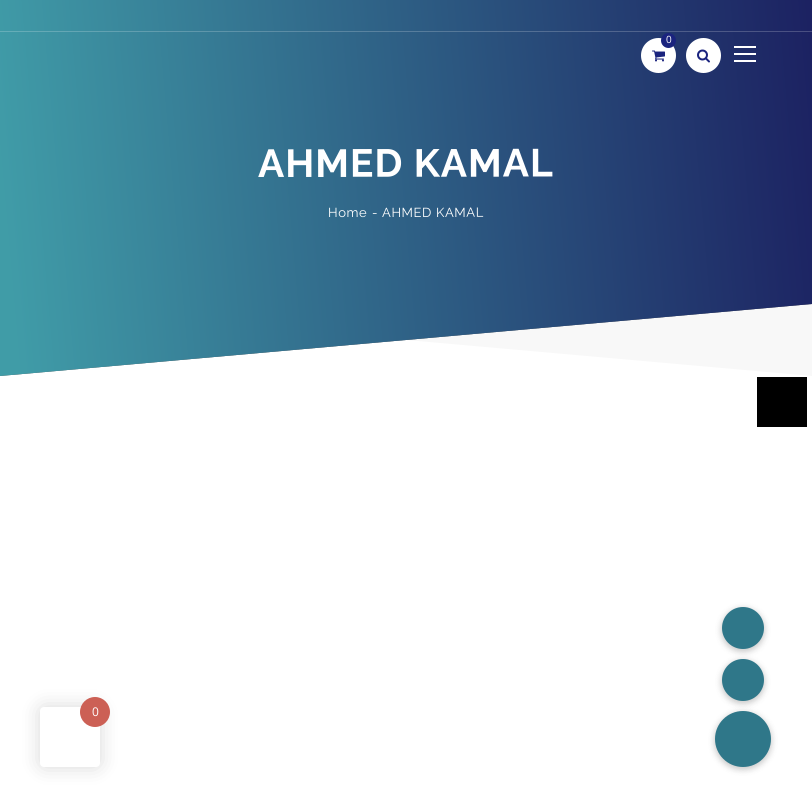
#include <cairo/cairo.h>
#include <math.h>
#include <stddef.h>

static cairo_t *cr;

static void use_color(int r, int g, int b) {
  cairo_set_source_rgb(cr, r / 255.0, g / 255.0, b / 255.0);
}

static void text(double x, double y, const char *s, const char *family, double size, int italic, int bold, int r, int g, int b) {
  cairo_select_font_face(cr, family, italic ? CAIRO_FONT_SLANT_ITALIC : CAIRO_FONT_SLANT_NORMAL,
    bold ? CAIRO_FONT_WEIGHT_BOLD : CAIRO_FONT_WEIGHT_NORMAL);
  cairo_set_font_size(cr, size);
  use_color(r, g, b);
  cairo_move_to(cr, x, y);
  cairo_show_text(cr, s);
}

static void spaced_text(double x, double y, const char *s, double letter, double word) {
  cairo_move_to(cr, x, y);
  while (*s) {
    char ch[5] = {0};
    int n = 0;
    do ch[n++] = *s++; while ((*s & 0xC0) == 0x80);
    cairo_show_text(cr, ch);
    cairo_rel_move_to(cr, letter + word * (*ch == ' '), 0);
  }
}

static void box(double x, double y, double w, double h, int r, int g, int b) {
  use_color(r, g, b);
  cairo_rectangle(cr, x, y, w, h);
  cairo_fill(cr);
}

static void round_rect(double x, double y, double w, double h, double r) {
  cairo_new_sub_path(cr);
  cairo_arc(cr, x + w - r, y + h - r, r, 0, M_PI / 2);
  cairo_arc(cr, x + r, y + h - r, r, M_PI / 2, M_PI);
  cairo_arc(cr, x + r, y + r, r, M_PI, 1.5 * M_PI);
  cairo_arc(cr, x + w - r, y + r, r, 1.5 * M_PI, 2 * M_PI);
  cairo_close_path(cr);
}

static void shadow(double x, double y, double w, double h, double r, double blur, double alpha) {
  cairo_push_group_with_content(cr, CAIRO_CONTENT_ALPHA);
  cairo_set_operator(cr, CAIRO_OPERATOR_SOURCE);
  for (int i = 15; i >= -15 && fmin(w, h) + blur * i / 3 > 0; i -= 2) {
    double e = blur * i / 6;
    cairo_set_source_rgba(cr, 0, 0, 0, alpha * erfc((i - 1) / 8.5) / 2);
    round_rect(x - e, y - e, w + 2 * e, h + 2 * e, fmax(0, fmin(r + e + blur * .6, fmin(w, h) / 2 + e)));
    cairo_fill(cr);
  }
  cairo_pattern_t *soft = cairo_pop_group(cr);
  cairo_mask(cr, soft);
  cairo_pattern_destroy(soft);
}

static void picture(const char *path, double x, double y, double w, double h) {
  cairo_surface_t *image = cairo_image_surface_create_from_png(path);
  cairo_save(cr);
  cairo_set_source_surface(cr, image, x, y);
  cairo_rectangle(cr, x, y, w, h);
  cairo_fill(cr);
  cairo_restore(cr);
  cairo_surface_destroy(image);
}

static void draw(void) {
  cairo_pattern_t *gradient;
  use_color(255, 255, 255);
  cairo_paint(cr);
  use_color(248, 248, 248);
  cairo_new_path(cr);
  cairo_move_to(cr, 0, -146);
  cairo_line_to(cr, 812, -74);
  cairo_line_to(cr, 812, 376);
  cairo_line_to(cr, 0, 304);
  cairo_close_path(cr);
  cairo_fill(cr);
  use_color(34, 34, 34);
  cairo_new_path(cr);
  cairo_move_to(cr, 0, -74);
  cairo_line_to(cr, 812, -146);
  cairo_line_to(cr, 812, 304);
  cairo_line_to(cr, 0, 376);
  cairo_close_path(cr);
  cairo_fill(cr);
  gradient = cairo_pattern_create_linear(812, 79, 0, 151);
  cairo_pattern_add_color_stop_rgba(gradient, 0, 0.102, 0.137, 0.494, 0.7);
  cairo_pattern_add_color_stop_rgba(gradient, 1, 0.302, 0.816, 0.882, 0.7);
  cairo_set_source(cr, gradient);
  cairo_pattern_destroy(gradient);
  cairo_new_path(cr);
  cairo_move_to(cr, 0, -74);
  cairo_line_to(cr, 0, 376);
  cairo_line_to(cr, 812, 304);
  cairo_line_to(cr, 812, -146);
  cairo_line_to(cr, 406, -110);
  cairo_close_path(cr);
  cairo_fill(cr);
  cairo_set_source_rgba(cr, 1, 1, 1, 0.2);
  cairo_rectangle(cr, 0, 31, 812, 1);
  cairo_fill(cr);
  use_color(255, 255, 255);
  cairo_arc(cr, 658.5, 55.5, 17.5, 0, 2 * M_PI);
  cairo_fill(cr);
  use_color(26, 35, 126);
  cairo_arc(cr, 668.5, 40.5, 7.5, 0, 2 * M_PI);
  cairo_fill(cr);
  picture("img_01.png", 652, 50, 13, 12);
  use_color(255, 255, 255);
  cairo_arc(cr, 703.5, 55.5, 17.5, 0, 2 * M_PI);
  cairo_fill(cr);
  picture("img_02.png", 697, 49, 13, 14);
  box(734, 46, 22, 2, 255, 255, 255);
  box(734, 53, 22, 2, 255, 255, 255);
  box(734, 60, 22, 2, 255, 255, 255);
  box(757, 377, 50, 50, 0, 0, 0);
  use_color(0, 0, 0);
  shadow(40, 707, 60, 60, 4, 10, 0.15);
  use_color(255, 255, 255);
  round_rect(40, 707, 60, 60, 4);
  cairo_fill(cr);
  use_color(204, 96, 85);
  cairo_arc(cr, 95, 712, 15, 0, 2 * M_PI);
  cairo_fill(cr);
  use_color(0, 0, 0);
  shadow(721, 660, 44, 44, 22, 3, 0.2);
  use_color(47, 119, 137);
  cairo_arc(cr, 743, 680, 21, 0, 2 * M_PI);
  cairo_fill(cr);
  use_color(0, 0, 0);
  shadow(721, 608, 44, 44, 22, 3, 0.2);
  use_color(47, 119, 137);
  cairo_arc(cr, 743, 628, 21, 0, 2 * M_PI);
  cairo_fill(cr);
  use_color(0, 0, 0);
  shadow(714, 712, 58, 58, 29, 3, 0.2);
  use_color(47, 119, 137);
  cairo_arc(cr, 743, 739, 28, 0, 2 * M_PI);
  cairo_fill(cr);
  text(666, 43, "0", "Open Sans", 10, 0, 0, 255, 255, 255);
  cairo_select_font_face(cr, "Raleway", CAIRO_FONT_SLANT_NORMAL, CAIRO_FONT_WEIGHT_BOLD);
  cairo_set_font_size(cr, 39);
  cairo_save(cr);
  cairo_translate(cr, 258, 177);
  cairo_rotate(cr, -0.1 * M_PI / 180);
  spaced_text(0, 0, "AHMED KAMAL", 1, 0);
  cairo_restore(cr);
  cairo_select_font_face(cr, "Raleway", CAIRO_FONT_SLANT_NORMAL, CAIRO_FONT_WEIGHT_NORMAL);
  cairo_set_font_size(cr, 13);
  cairo_save(cr);
  cairo_translate(cr, 328, 217);
  cairo_rotate(cr, -0.1 * M_PI / 180);
  spaced_text(0, 0, "Home", 0.6, 0);
  cairo_restore(cr);
  cairo_save(cr);
  cairo_translate(cr, 372, 217);
  cairo_rotate(cr, -0.1 * M_PI / 180);
  spaced_text(0, 0, "-", 0.6, 0);
  cairo_restore(cr);
  cairo_save(cr);
  cairo_translate(cr, 382, 217);
  cairo_rotate(cr, -0.1 * M_PI / 180);
  spaced_text(0, 0, "AHMED KAMAL", 0.6, 0);
  cairo_restore(cr);
  text(92, 716, "0", "Open Sans", 12, 0, 0, 255, 255, 255);
}

int main(void) {
  cairo_surface_t *surface = cairo_image_surface_create(CAIRO_FORMAT_RGB24, 812, 807);
  cr = cairo_create(surface);
  cairo_font_options_t *options = cairo_font_options_create();
  cairo_font_options_set_hint_metrics(options, CAIRO_HINT_METRICS_OFF);
  cairo_font_options_set_hint_style(options, CAIRO_HINT_STYLE_NONE);
  cairo_set_font_options(cr, options);
  cairo_set_miter_limit(cr, 4);
  draw();
  cairo_surface_write_to_png(surface, "out.png");
  cairo_font_options_destroy(options);
  cairo_destroy(cr);
  cairo_surface_destroy(surface);
  return 0;
}
